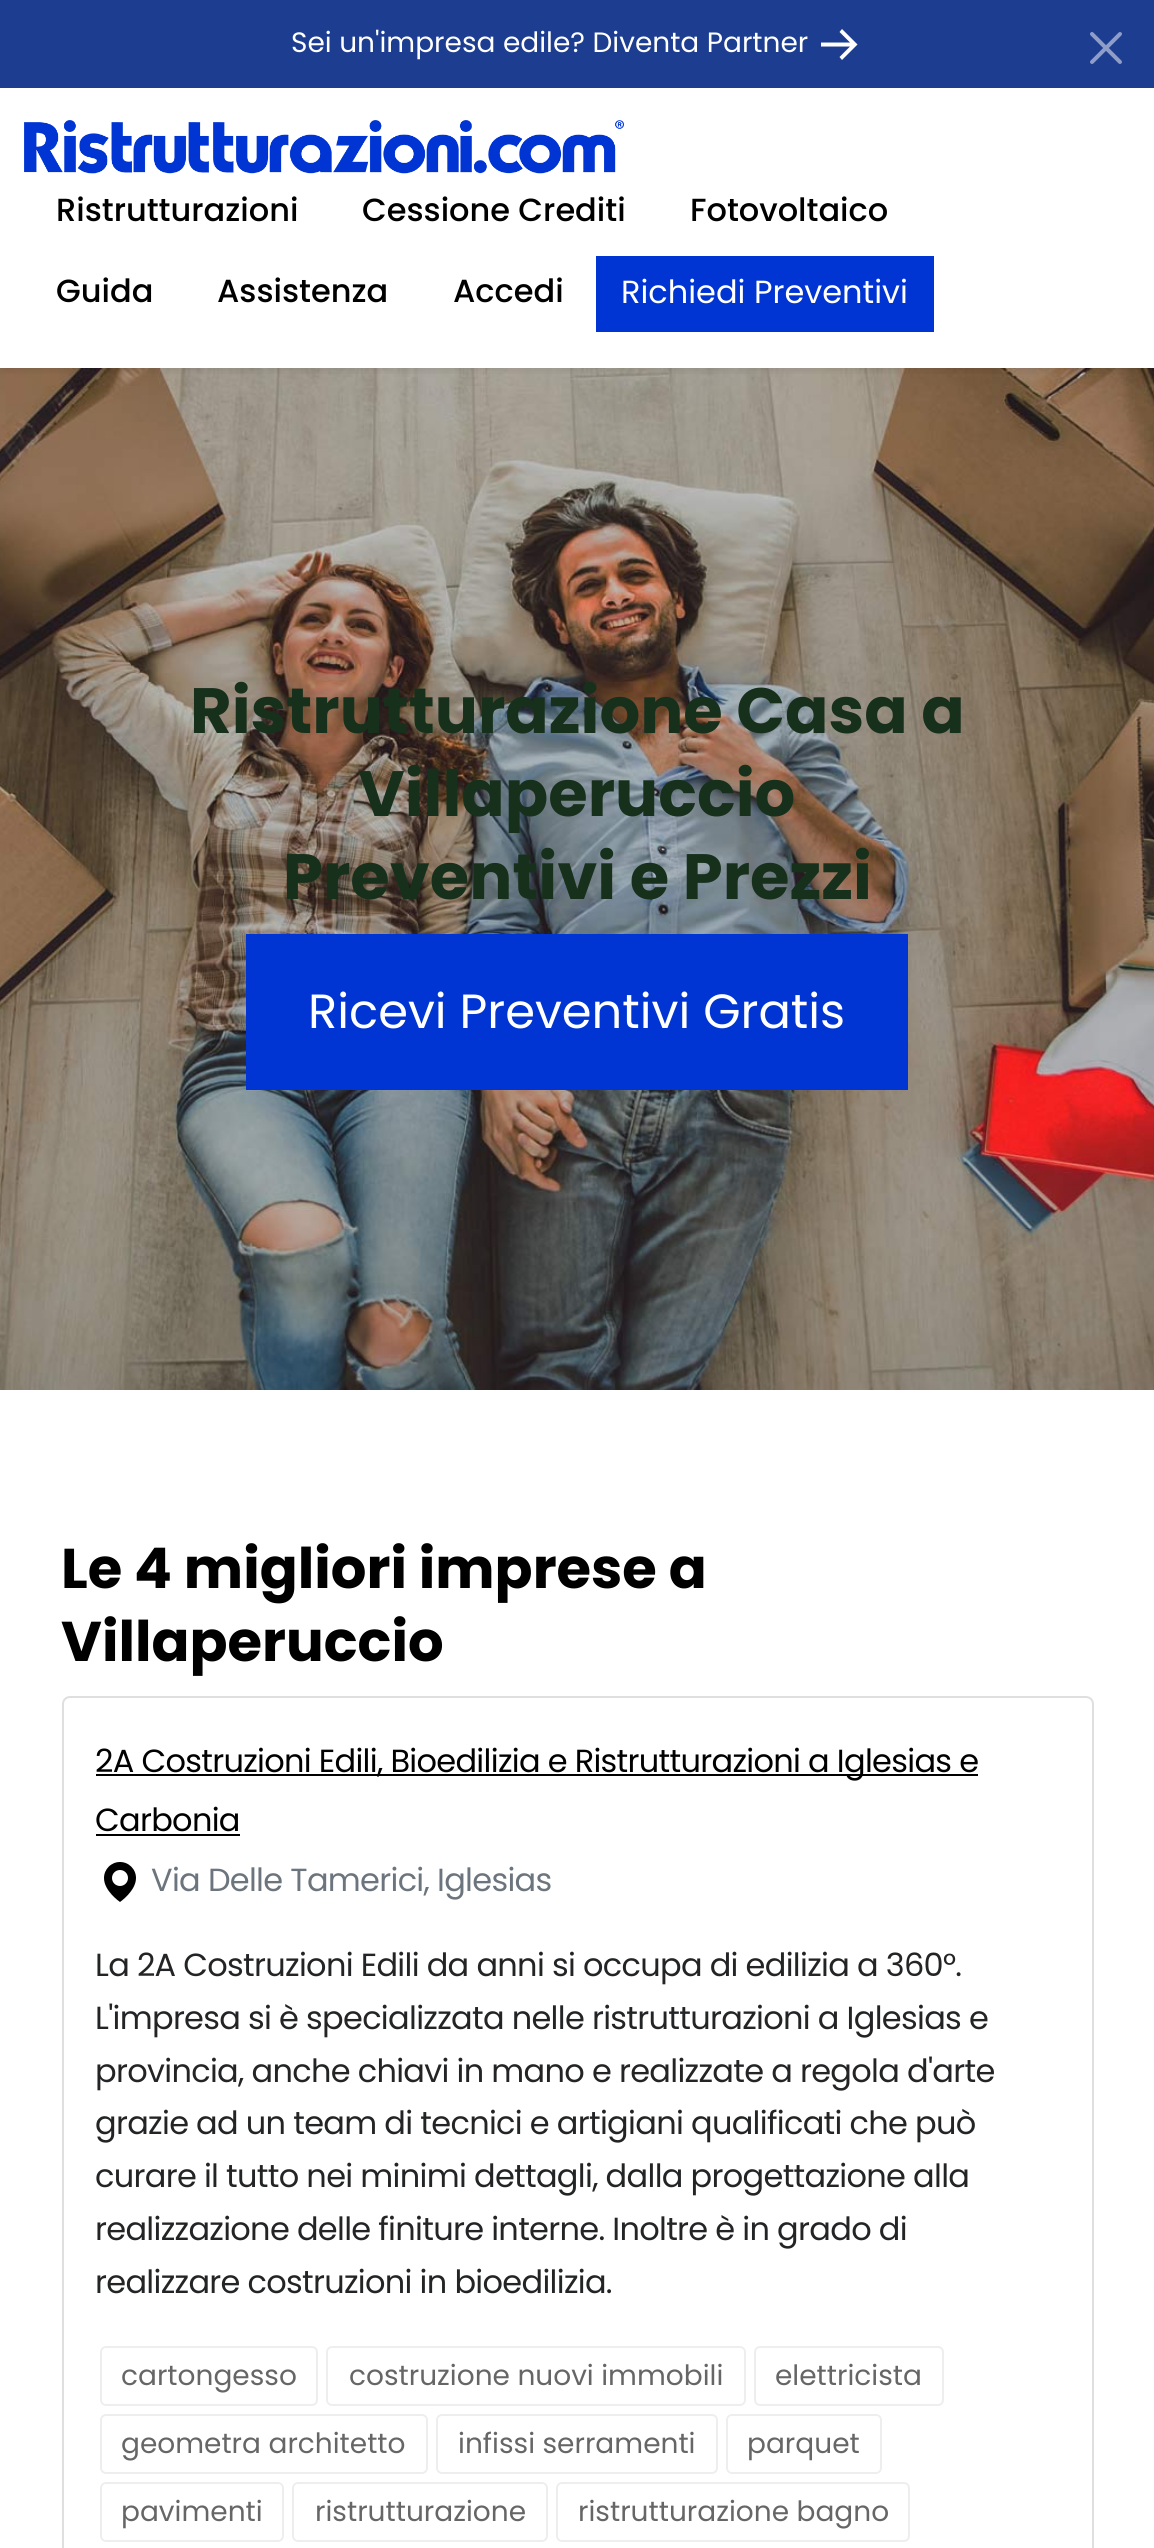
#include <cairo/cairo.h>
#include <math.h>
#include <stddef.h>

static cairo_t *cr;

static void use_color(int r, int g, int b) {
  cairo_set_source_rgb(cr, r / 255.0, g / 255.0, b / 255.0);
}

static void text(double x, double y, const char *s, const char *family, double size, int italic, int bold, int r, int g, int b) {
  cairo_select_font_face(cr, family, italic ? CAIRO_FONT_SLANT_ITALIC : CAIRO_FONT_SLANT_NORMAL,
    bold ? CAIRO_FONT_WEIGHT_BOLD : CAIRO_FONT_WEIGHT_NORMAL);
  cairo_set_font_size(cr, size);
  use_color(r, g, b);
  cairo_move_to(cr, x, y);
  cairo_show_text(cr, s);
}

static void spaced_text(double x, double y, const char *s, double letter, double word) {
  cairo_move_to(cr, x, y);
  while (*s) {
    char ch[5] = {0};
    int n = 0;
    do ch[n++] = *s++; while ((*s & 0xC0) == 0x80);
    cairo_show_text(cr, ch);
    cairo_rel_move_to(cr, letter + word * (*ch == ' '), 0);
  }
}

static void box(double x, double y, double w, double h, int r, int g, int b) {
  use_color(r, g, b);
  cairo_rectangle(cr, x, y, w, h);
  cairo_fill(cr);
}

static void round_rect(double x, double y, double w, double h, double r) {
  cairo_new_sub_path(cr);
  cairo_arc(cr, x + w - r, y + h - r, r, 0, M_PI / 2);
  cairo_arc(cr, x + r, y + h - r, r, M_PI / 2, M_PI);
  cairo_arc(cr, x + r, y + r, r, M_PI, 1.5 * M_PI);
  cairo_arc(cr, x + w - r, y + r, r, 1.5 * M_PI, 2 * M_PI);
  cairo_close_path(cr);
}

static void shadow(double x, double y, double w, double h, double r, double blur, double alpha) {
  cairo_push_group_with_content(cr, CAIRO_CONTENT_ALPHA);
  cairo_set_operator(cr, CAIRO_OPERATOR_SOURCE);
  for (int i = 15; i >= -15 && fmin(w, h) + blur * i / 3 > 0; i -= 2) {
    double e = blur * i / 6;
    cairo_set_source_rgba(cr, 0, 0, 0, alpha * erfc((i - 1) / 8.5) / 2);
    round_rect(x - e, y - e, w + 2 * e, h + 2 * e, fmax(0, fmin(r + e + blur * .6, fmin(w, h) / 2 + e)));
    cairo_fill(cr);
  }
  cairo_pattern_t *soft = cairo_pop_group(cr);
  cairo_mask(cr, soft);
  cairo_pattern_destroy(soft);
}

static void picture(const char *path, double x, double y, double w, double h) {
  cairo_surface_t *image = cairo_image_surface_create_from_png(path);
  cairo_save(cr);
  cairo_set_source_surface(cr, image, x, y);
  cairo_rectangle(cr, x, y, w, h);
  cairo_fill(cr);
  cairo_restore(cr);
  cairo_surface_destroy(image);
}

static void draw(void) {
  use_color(255, 255, 255);
  cairo_paint(cr);
  picture("img_03.png", 0, 368, 1154, 1022);
  cairo_save(cr);
  cairo_rectangle(cr, 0, 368, 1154, 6);
  cairo_clip(cr);
  use_color(0, 0, 0);
  shadow(0, 4, 1154, 368, 0, 4, 0.07);
  cairo_restore(cr);
  box(0, 0, 1154, 88, 29, 61, 145);
  use_color(255, 255, 255);
  cairo_new_path(cr);
  cairo_move_to(cr, 821, 46.5);
  cairo_line_to(cr, 850, 46.5);
  cairo_line_to(cr, 839.5, 57);
  cairo_line_to(cr, 842, 60);
  cairo_line_to(cr, 857.5, 44.5);
  cairo_line_to(cr, 842, 29);
  cairo_line_to(cr, 839.5, 32);
  cairo_line_to(cr, 850, 42.5);
  cairo_line_to(cr, 821, 42.5);
  cairo_close_path(cr);
  cairo_fill(cr);
  picture("img_01.png", 1090, 32, 32, 32);
  picture("img_02.png", 24, 120, 600, 54);
  box(596, 256, 338, 76, 0, 53, 211);
  box(246, 934, 662, 156, 0, 53, 211);
  round_rect(63, 1697, 1030, 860, 7);
  use_color(223, 223, 223);
  cairo_stroke(cr);
  box(96, 1774, 882, 2, 0, 0, 0);
  box(96, 1834, 144, 2, 0, 0, 0);
  picture("img_04.png", 104, 1862, 32, 40);
  round_rect(101, 2347, 216, 58, 5);
  use_color(238, 238, 238);
  cairo_stroke(cr);
  round_rect(327, 2347, 418, 58, 5);
  cairo_stroke(cr);
  round_rect(755, 2347, 188, 58, 5);
  cairo_stroke(cr);
  round_rect(101, 2415, 326, 58, 5);
  cairo_stroke(cr);
  round_rect(437, 2415, 280, 58, 5);
  cairo_stroke(cr);
  round_rect(727, 2415, 154, 58, 5);
  cairo_stroke(cr);
  round_rect(101, 2483, 182, 58, 5);
  cairo_stroke(cr);
  round_rect(293, 2483, 254, 58, 5);
  cairo_stroke(cr);
  round_rect(557, 2483, 352, 58, 5);
  cairo_stroke(cr);
  text(291, 52, "Sei un'impresa edile? Diventa Partner", "Poppins", 28, 0, 0, 255, 255, 255);
  text(56, 221, "Ristrutturazioni", "Poppins Medium", 32, 0, 0, 0, 0, 0);
  text(362, 221, "Cessione Crediti", "Poppins Medium", 32, 0, 0, 0, 0, 0);
  text(690, 221, "Fotovoltaico", "Poppins Medium", 32, 0, 0, 0, 0, 0);
  text(56, 302, "Guida", "Poppins Medium", 32, 0, 0, 0, 0, 0);
  text(217, 302, "Assistenza", "Poppins Medium", 32, 0, 0, 0, 0, 0);
  text(453, 302, "Accedi", "Poppins Medium", 32, 0, 0, 0, 0, 0);
  text(621, 303, "Richiedi Preventivi", "Poppins", 32, 0, 0, 255, 255, 255);
  text(190, 733, "Ristrutturazione Casa a", "Poppins", 64, 0, 1, 23, 48, 28);
  text(358, 816, "Villaperuccio", "Poppins", 64, 0, 1, 23, 48, 28);
  text(283, 899, "Preventivi e Prezzi", "Poppins", 64, 0, 1, 23, 48, 28);
  text(308, 1028, "Ricevi Preventivi Gratis", "Poppins", 48, 0, 0, 255, 255, 255);
  text(61, 1588, "Le 4 migliori imprese a", "Poppins", 56, 0, 1, 0, 0, 0);
  text(61, 1661, "Villaperuccio", "Poppins", 56, 0, 1, 0, 0, 0);
  cairo_select_font_face(cr, "Poppins", CAIRO_FONT_SLANT_NORMAL, CAIRO_FONT_WEIGHT_NORMAL);
  cairo_set_font_size(cr, 32);
  spaced_text(95, 1772, "2A Costruzioni Edili, Bioedilizia e Ristrutturazioni a Iglesias e", -0.7, 0);
  spaced_text(95, 1831, "Carbonia", -0.7, 0);
  use_color(108, 117, 125);
  spaced_text(151, 1891, "Via Delle Tamerici, Iglesias", -0.7, 0);
  use_color(35, 36, 37);
  spaced_text(95, 1976, "La 2A Costruzioni Edili da anni si occupa di edilizia a 360°.", -0.7, 0);
  spaced_text(95, 2029, "L'impresa si è specializzata nelle ristrutturazioni a Iglesias e", -0.7, 0);
  spaced_text(95, 2082, "provincia, anche chiavi in mano e realizzate a regola d'arte", -0.7, 0);
  spaced_text(95, 2134, "grazie ad un team di tecnici e artigiani qualificati che può", -0.7, 0);
  spaced_text(95, 2187, "curare il tutto nei minimi dettagli, dalla progettazione alla", -0.7, 0);
  spaced_text(95, 2240, "realizzazione delle finiture interne. Inoltre è in grado di", -0.7, 0);
  spaced_text(95, 2293, "realizzare costruzioni in bioedilizia.", -0.7, 0);
  text(121, 2385, "cartongesso", "Poppins", 28, 0, 0, 102, 102, 102);
  text(349, 2385, "costruzione nuovi immobili", "Poppins", 28, 0, 0, 102, 102, 102);
  text(775, 2385, "elettricista", "Poppins", 28, 0, 0, 102, 102, 102);
  text(121, 2453, "geometra architetto", "Poppins", 28, 0, 0, 102, 102, 102);
  text(458, 2453, "infissi serramenti", "Poppins", 28, 0, 0, 102, 102, 102);
  text(747, 2453, "parquet", "Poppins", 28, 0, 0, 102, 102, 102);
  text(121, 2521, "pavimenti", "Poppins", 28, 0, 0, 102, 102, 102);
  text(315, 2521, "ristrutturazione", "Poppins", 28, 0, 0, 102, 102, 102);
  text(578, 2521, "ristrutturazione bagno", "Poppins", 28, 0, 0, 102, 102, 102);
}

int main(void) {
  cairo_surface_t *surface = cairo_image_surface_create(CAIRO_FORMAT_RGB24, 1154, 2548);
  cr = cairo_create(surface);
  cairo_font_options_t *options = cairo_font_options_create();
  cairo_font_options_set_hint_metrics(options, CAIRO_HINT_METRICS_OFF);
  cairo_font_options_set_hint_style(options, CAIRO_HINT_STYLE_NONE);
  cairo_set_font_options(cr, options);
  cairo_set_miter_limit(cr, 4);
  draw();
  cairo_surface_write_to_png(surface, "out.png");
  cairo_font_options_destroy(options);
  cairo_destroy(cr);
  cairo_surface_destroy(surface);
  return 0;
}
